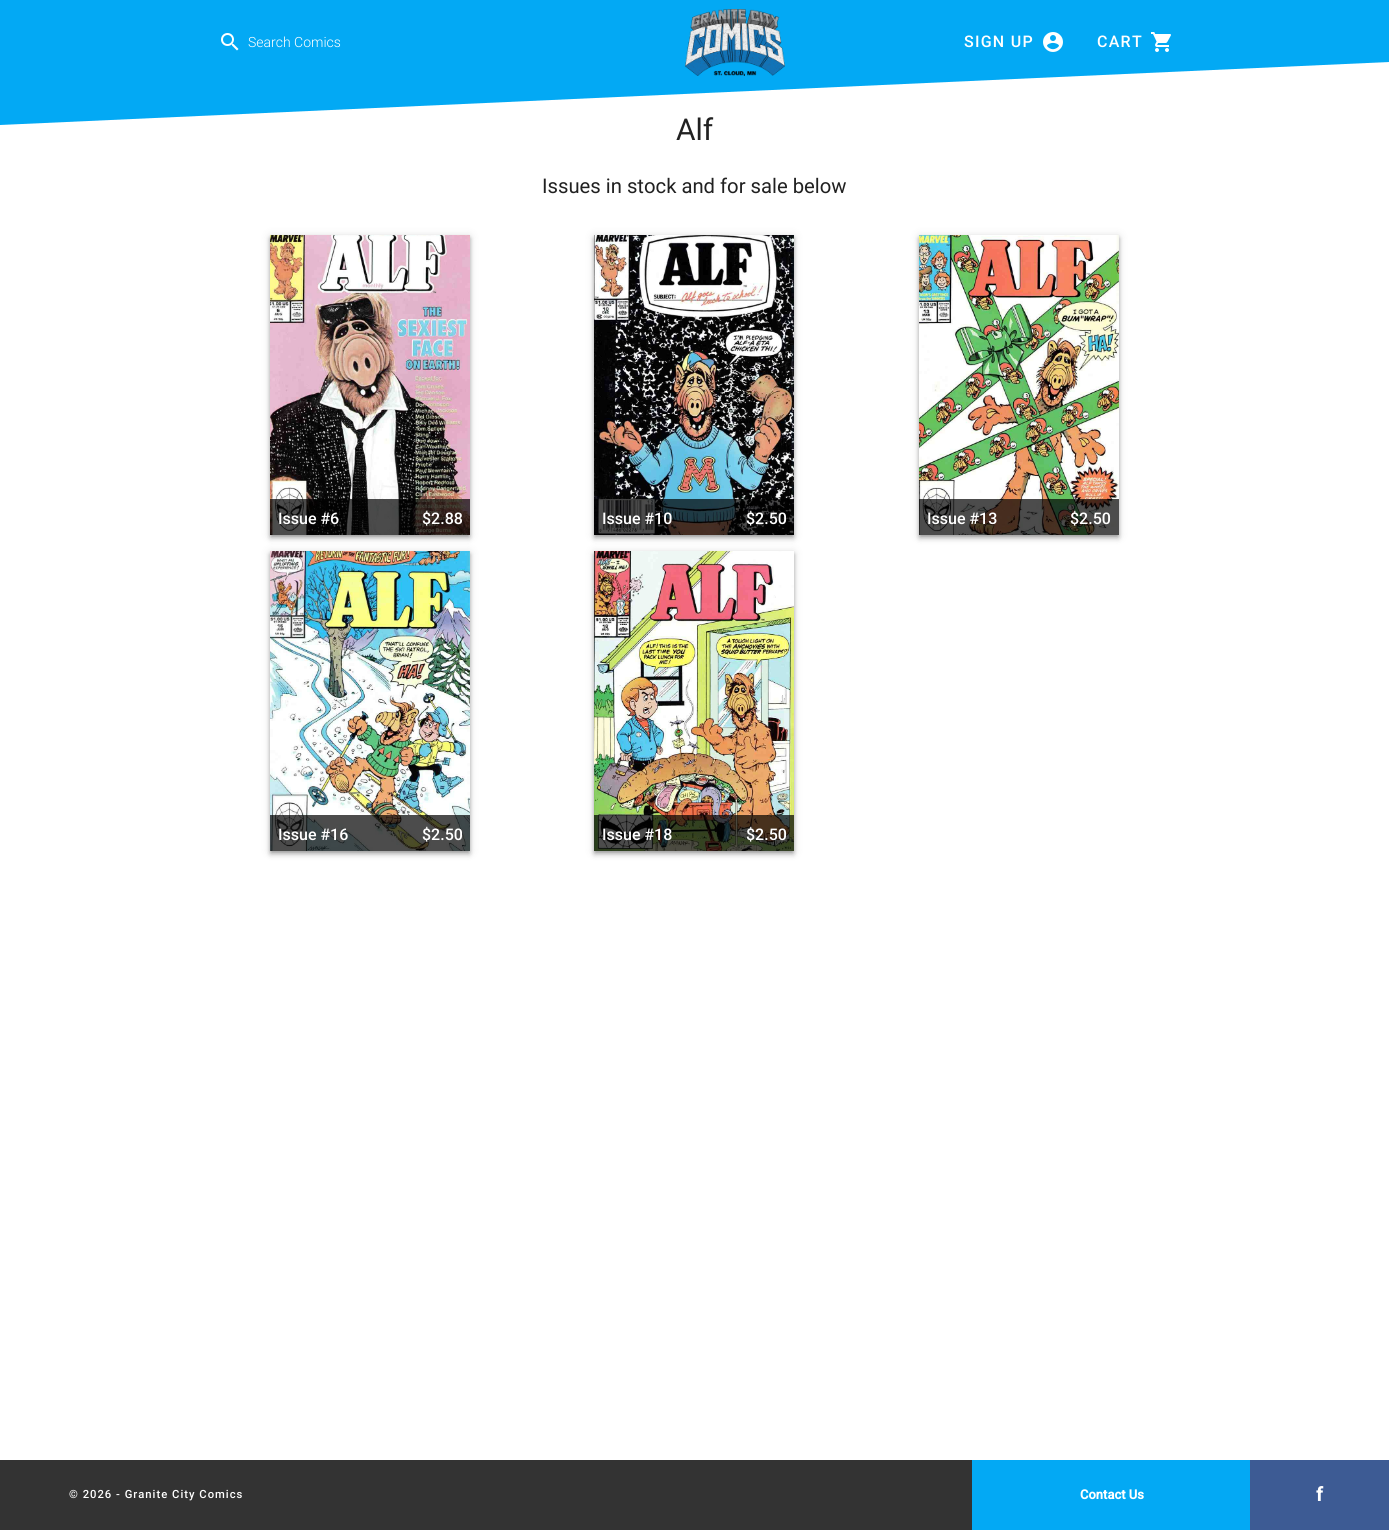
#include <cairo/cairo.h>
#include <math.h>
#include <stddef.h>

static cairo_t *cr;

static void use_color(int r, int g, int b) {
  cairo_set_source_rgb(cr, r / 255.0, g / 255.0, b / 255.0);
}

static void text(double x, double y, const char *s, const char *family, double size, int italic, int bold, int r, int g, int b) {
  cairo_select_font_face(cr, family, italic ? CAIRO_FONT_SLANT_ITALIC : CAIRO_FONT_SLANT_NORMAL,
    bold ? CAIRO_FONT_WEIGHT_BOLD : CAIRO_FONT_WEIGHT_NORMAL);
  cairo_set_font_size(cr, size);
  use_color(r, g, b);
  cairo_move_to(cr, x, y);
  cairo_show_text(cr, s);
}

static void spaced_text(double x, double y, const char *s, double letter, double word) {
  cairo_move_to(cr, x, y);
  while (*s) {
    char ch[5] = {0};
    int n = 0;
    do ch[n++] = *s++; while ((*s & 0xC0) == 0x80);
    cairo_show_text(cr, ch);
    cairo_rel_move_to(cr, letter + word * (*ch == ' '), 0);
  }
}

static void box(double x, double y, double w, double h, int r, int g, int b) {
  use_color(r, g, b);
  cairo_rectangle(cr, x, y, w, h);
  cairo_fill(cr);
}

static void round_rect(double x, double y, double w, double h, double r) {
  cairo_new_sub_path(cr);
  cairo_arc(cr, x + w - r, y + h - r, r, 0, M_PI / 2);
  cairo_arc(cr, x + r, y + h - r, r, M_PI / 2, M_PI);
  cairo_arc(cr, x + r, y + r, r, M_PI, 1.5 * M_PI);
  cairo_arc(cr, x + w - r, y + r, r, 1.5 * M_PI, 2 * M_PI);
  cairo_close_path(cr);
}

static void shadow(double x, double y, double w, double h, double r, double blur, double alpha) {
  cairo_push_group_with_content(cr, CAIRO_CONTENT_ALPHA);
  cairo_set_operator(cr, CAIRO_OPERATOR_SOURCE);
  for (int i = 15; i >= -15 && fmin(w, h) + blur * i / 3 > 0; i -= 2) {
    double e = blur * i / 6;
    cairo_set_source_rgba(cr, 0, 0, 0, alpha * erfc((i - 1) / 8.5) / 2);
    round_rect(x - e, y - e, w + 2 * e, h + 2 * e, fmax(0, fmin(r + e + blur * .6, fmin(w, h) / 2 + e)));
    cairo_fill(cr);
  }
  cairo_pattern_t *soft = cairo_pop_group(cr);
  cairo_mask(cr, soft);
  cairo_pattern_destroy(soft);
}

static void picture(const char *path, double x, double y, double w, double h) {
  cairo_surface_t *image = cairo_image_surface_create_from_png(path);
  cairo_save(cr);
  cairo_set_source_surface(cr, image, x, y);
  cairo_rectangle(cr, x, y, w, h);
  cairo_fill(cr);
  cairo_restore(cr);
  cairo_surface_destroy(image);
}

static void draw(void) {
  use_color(255, 255, 255);
  cairo_paint(cr);
  use_color(3, 169, 244);
  cairo_new_path(cr);
  cairo_move_to(cr, 0, 0);
  cairo_line_to(cr, 0, 125);
  cairo_line_to(cr, 1389, 62);
  cairo_line_to(cr, 1389, 0);
  cairo_close_path(cr);
  cairo_fill(cr);
  picture("img_01.png", 221, 33, 18, 18);
  picture("img_02.png", 685, 9, 100, 67);
  picture("img_03.png", 1043, 32, 20, 20);
  picture("img_04.png", 1151, 32, 20, 20);
  use_color(0, 0, 0);
  shadow(271, 238, 198, 298, 0, 2, 0.3);
  shadow(270, 236, 200, 300, 0, 5, 0.12);
  shadow(270, 239, 200, 300, 0, 2.5, 0.14);
  picture("img_05.png", 270, 235, 200, 300);
  cairo_set_source_rgba(cr, 0, 0, 0, 0.7);
  cairo_rectangle(cr, 270, 499, 200, 36);
  cairo_fill(cr);
  use_color(0, 0, 0);
  shadow(595, 238, 198, 298, 0, 2, 0.3);
  shadow(594, 236, 200, 300, 0, 5, 0.12);
  shadow(594, 239, 200, 300, 0, 2.5, 0.14);
  picture("img_06.png", 594, 235, 200, 300);
  cairo_set_source_rgba(cr, 0, 0, 0, 0.7);
  cairo_rectangle(cr, 594, 499, 200, 36);
  cairo_fill(cr);
  use_color(0, 0, 0);
  shadow(920, 238, 198, 298, 0, 2, 0.3);
  shadow(919, 236, 200, 300, 0, 5, 0.12);
  shadow(919, 239, 200, 300, 0, 2.5, 0.14);
  picture("img_07.png", 919, 235, 200, 300);
  cairo_set_source_rgba(cr, 0, 0, 0, 0.7);
  cairo_rectangle(cr, 919, 499, 200, 36);
  cairo_fill(cr);
  use_color(0, 0, 0);
  shadow(271, 554, 198, 298, 0, 2, 0.3);
  shadow(270, 552, 200, 300, 0, 5, 0.12);
  shadow(270, 555, 200, 300, 0, 2.5, 0.14);
  picture("img_08.png", 270, 551, 200, 300);
  cairo_set_source_rgba(cr, 0, 0, 0, 0.7);
  cairo_rectangle(cr, 270, 815, 200, 36);
  cairo_fill(cr);
  use_color(0, 0, 0);
  shadow(595, 554, 198, 298, 0, 2, 0.3);
  shadow(594, 552, 200, 300, 0, 5, 0.12);
  shadow(594, 555, 200, 300, 0, 2.5, 0.14);
  picture("img_09.png", 594, 551, 200, 300);
  cairo_set_source_rgba(cr, 0, 0, 0, 0.7);
  cairo_rectangle(cr, 594, 815, 200, 36);
  cairo_fill(cr);
  box(0, 1460, 972, 70, 51, 51, 51);
  box(972, 1460, 278, 70, 3, 169, 244);
  box(1250, 1460, 139, 70, 61, 91, 148);
  text(248, 47, "Search Comics", "Roboto Light", 14, 0, 0, 255, 255, 255);
  cairo_select_font_face(cr, "Roboto Medium", CAIRO_FONT_SLANT_NORMAL, CAIRO_FONT_WEIGHT_NORMAL);
  cairo_set_font_size(cr, 16);
  spaced_text(964, 47, "SIGN UP", 1.25, 0);
  spaced_text(1097, 47, "CART", 1.25, 0);
  text(676, 140, "Alf", "Roboto", 30, 0, 0, 33, 33, 33);
  text(542, 193, "Issues in stock and for sale below", "Roboto", 20.25, 0, 0, 33, 33, 33);
  text(278, 524, "Issue #6", "Roboto Medium", 16, 0, 0, 255, 255, 255);
  text(422, 524, "$2.88", "Roboto Medium", 16, 0, 0, 255, 255, 255);
  text(602, 524, "Issue #10", "Roboto Medium", 16, 0, 0, 255, 255, 255);
  text(746, 524, "$2.50", "Roboto Medium", 16, 0, 0, 255, 255, 255);
  text(927, 524, "Issue #13", "Roboto Medium", 16, 0, 0, 255, 255, 255);
  text(1070, 524, "$2.50", "Roboto Medium", 16, 0, 0, 255, 255, 255);
  text(278, 840, "Issue #16", "Roboto Medium", 16, 0, 0, 255, 255, 255);
  text(422, 840, "$2.50", "Roboto Medium", 16, 0, 0, 255, 255, 255);
  text(602, 840, "Issue #18", "Roboto Medium", 16, 0, 0, 255, 255, 255);
  text(746, 840, "$2.50", "Roboto Medium", 16, 0, 0, 255, 255, 255);
  cairo_set_font_size(cr, 11.25);
  spaced_text(69, 1498, "© 2026 - Granite City Comics", 1, 0);
  text(1080, 1499, "Contact Us", "Roboto", 13, 0, 1, 255, 255, 255);
  text(1316, 1501, "f", "Roboto", 19, 0, 1, 255, 255, 255);
}

int main(void) {
  cairo_surface_t *surface = cairo_image_surface_create(CAIRO_FORMAT_RGB24, 1389, 1530);
  cr = cairo_create(surface);
  cairo_font_options_t *options = cairo_font_options_create();
  cairo_font_options_set_hint_metrics(options, CAIRO_HINT_METRICS_OFF);
  cairo_font_options_set_hint_style(options, CAIRO_HINT_STYLE_NONE);
  cairo_set_font_options(cr, options);
  cairo_set_miter_limit(cr, 4);
  draw();
  cairo_surface_write_to_png(surface, "out.png");
  cairo_font_options_destroy(options);
  cairo_destroy(cr);
  cairo_surface_destroy(surface);
  return 0;
}
